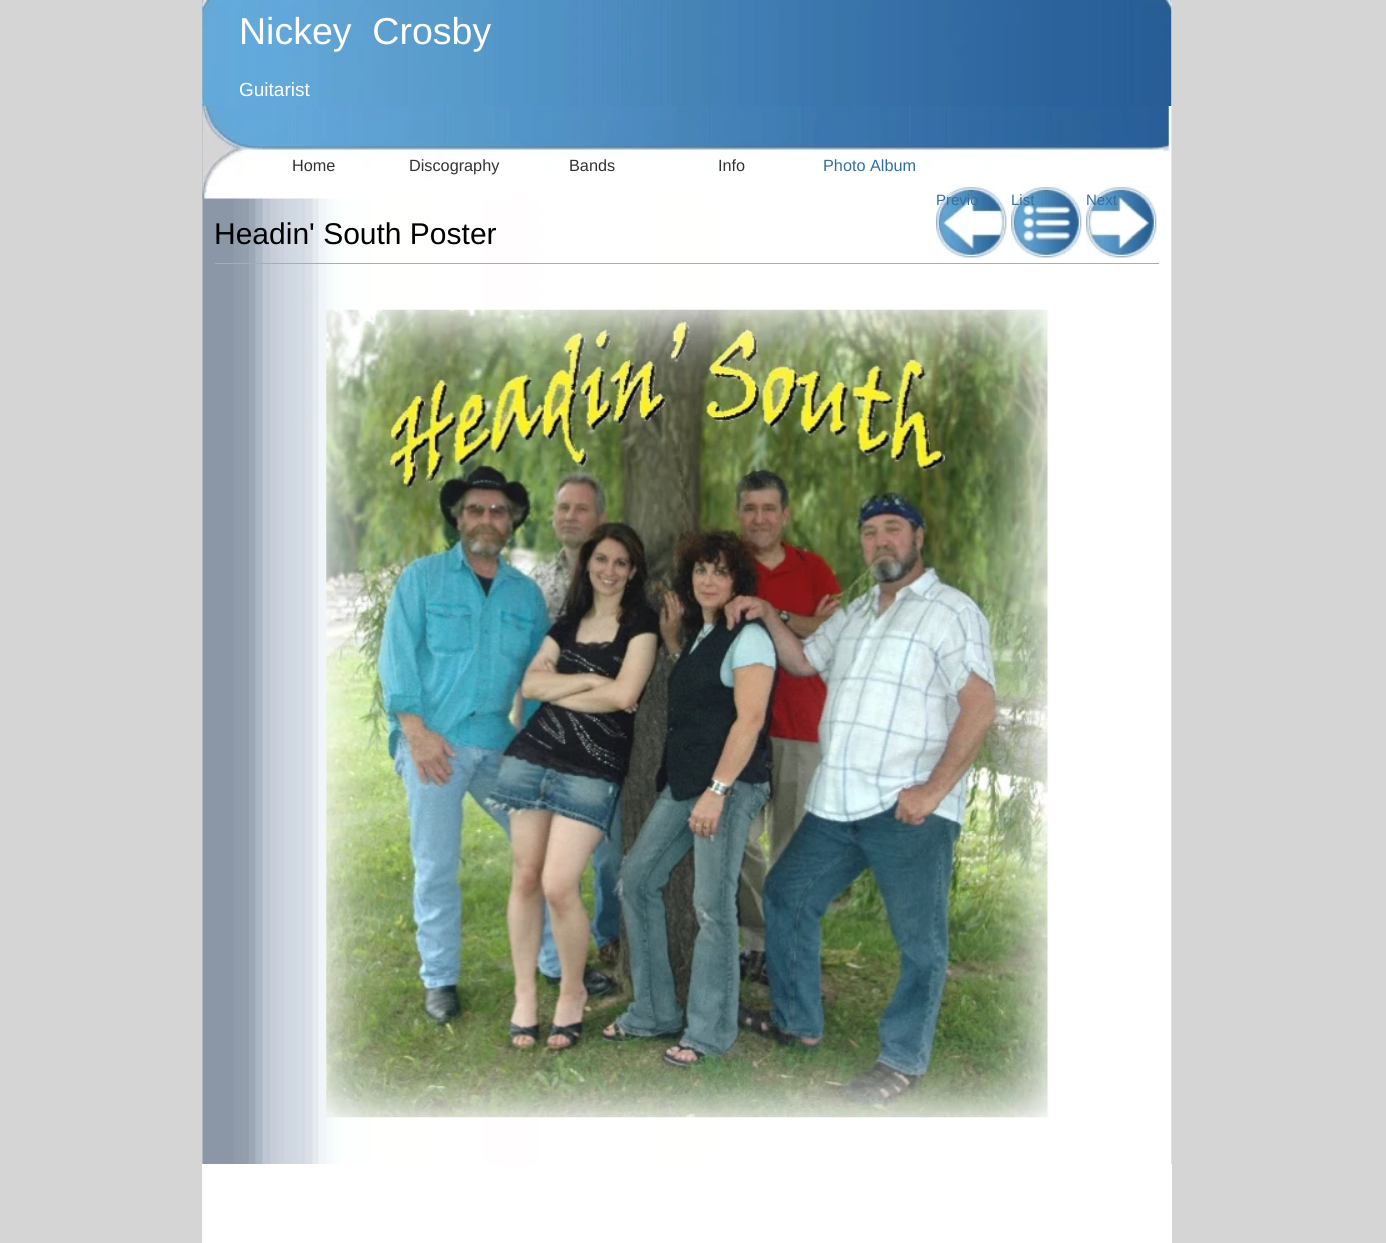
#include <cairo/cairo.h>
#include <math.h>
#include <stddef.h>

static cairo_t *cr;

static void use_color(int r, int g, int b) {
  cairo_set_source_rgb(cr, r / 255.0, g / 255.0, b / 255.0);
}

static void text(double x, double y, const char *s, const char *family, double size, int italic, int bold, int r, int g, int b) {
  cairo_select_font_face(cr, family, italic ? CAIRO_FONT_SLANT_ITALIC : CAIRO_FONT_SLANT_NORMAL,
    bold ? CAIRO_FONT_WEIGHT_BOLD : CAIRO_FONT_WEIGHT_NORMAL);
  cairo_set_font_size(cr, size);
  use_color(r, g, b);
  cairo_move_to(cr, x, y);
  cairo_show_text(cr, s);
}

static void box(double x, double y, double w, double h, int r, int g, int b) {
  use_color(r, g, b);
  cairo_rectangle(cr, x, y, w, h);
  cairo_fill(cr);
}

static void picture(const char *path, double x, double y, double w, double h) {
  cairo_surface_t *image = cairo_image_surface_create_from_png(path);
  cairo_save(cr);
  cairo_set_source_surface(cr, image, x, y);
  cairo_rectangle(cr, x, y, w, h);
  cairo_fill(cr);
  cairo_restore(cr);
  cairo_surface_destroy(image);
}

static void draw(void) {
  use_color(213, 213, 213);
  cairo_paint(cr);
  picture("img_01.png", 202, 0, 970, 1164);
  picture("img_03.png", 202, 101, 970, 98);
  picture("img_02.png", 202, 0, 970, 106);
  picture("img_08.png", 936, 186, 71, 72);
  picture("img_04.png", 936, 185, 71, 73);
  picture("img_05.png", 1011, 185, 71, 73);
  picture("img_06.png", 1011, 185, 70, 73);
  picture("img_07.png", 1086, 185, 71, 73);
  picture("img_09.png", 1086, 185, 71, 73);
  box(215, 263, 944, 1, 152, 177, 203);
  picture("img_10.png", 326, 309, 722, 809);
  box(202, 1164, 970, 79, 255, 255, 255);
  text(239, 44, "Nickey  Crosby", "Liberation Sans", 37.5, 0, 0, 255, 255, 255);
  text(239, 96, "Guitarist", "Liberation Sans", 19, 0, 0, 255, 255, 255);
  text(292, 171, "Home", "Liberation Sans", 16.25, 0, 0, 50, 50, 50);
  text(409, 171, "Discography", "Liberation Sans", 16.25, 0, 0, 50, 50, 50);
  text(569, 171, "Bands", "Liberation Sans", 16.25, 0, 0, 50, 50, 50);
  text(718, 171, "Info", "Liberation Sans", 16.25, 0, 0, 50, 50, 50);
  text(823, 171, "Photo Album", "Liberation Sans", 16.25, 0, 0, 50, 110, 160);
  text(936, 205, "Previo", "Liberation Sans", 15, 0, 0, 50, 110, 160);
  text(1011, 205, "List", "Liberation Sans", 15, 0, 0, 50, 110, 160);
  text(1086, 205, "Next", "Liberation Sans", 15, 0, 0, 50, 110, 160);
  text(214, 244, "Headin' South Poster", "Liberation Sans", 30, 0, 0, 0, 0, 0);
}

int main(void) {
  cairo_surface_t *surface = cairo_image_surface_create(CAIRO_FORMAT_RGB24, 1386, 1243);
  cr = cairo_create(surface);
  cairo_font_options_t *options = cairo_font_options_create();
  cairo_font_options_set_hint_metrics(options, CAIRO_HINT_METRICS_OFF);
  cairo_font_options_set_hint_style(options, CAIRO_HINT_STYLE_NONE);
  cairo_set_font_options(cr, options);
  cairo_set_miter_limit(cr, 4);
  draw();
  cairo_surface_write_to_png(surface, "out.png");
  cairo_font_options_destroy(options);
  cairo_destroy(cr);
  cairo_surface_destroy(surface);
  return 0;
}
